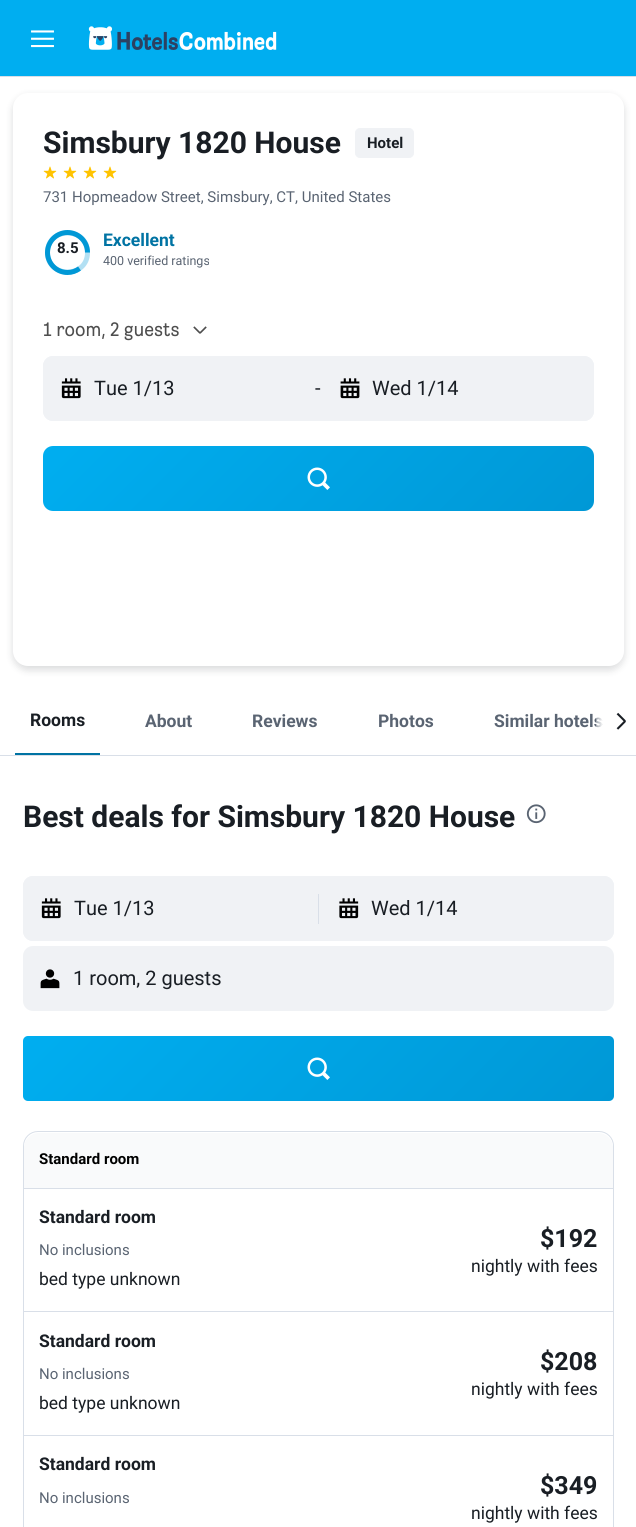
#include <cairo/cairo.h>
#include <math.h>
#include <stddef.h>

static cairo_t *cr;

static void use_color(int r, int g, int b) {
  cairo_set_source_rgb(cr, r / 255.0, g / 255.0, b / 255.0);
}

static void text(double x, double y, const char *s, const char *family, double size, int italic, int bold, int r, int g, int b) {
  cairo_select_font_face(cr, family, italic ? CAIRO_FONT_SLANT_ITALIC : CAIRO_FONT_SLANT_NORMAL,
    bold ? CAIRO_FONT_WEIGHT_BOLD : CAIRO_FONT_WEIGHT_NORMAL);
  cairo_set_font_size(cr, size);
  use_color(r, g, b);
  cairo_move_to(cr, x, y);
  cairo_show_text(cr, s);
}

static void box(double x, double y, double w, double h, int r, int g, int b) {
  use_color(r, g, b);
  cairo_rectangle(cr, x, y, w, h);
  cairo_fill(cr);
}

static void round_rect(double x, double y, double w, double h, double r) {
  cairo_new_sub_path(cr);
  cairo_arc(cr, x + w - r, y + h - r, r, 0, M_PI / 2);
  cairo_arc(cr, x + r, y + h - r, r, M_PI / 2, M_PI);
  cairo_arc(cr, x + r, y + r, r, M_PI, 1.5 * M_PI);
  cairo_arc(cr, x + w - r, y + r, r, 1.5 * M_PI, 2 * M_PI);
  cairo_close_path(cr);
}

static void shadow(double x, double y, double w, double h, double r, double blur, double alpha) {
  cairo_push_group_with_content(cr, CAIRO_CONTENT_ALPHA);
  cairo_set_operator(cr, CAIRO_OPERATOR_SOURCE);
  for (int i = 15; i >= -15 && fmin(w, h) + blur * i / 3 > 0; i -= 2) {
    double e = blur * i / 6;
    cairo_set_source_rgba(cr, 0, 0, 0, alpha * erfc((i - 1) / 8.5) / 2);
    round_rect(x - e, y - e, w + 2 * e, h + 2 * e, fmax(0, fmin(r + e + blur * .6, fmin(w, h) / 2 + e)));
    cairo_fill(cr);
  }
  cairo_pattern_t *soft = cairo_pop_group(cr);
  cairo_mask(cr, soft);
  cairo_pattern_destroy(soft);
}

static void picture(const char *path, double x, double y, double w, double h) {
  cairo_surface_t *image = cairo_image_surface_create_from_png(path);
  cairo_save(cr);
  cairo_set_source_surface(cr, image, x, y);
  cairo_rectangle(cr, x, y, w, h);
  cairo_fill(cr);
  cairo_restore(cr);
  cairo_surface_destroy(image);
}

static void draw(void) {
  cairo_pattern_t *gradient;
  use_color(255, 255, 255);
  cairo_paint(cr);
  box(0, 76, 636, 1, 217, 223, 232);
  box(0, 0, 636, 76, 0, 174, 240);
  picture("img_01.png", 31, 30, 23, 18);
  picture("img_02.png", 88, 26, 189, 24);
  use_color(25, 30, 36);
  shadow(13, 96, 611, 574, 15, 4, 0.16);
  use_color(255, 255, 255);
  round_rect(13, 93, 611, 573, 15);
  cairo_fill(cr);
  use_color(240, 242, 245);
  round_rect(355.5, 128.5, 58, 29, 4.5);
  cairo_fill_preserve(cr);
  cairo_set_line_width(cr, 1);
  cairo_stroke(cr);
  picture("img_03.png", 43, 166, 14, 13);
  picture("img_03.png", 63, 166, 14, 13);
  picture("img_03.png", 83, 166, 14, 13);
  picture("img_03.png", 103, 166, 14, 13);
  cairo_new_path(cr);
  cairo_move_to(cr, 87.5, 252.5);
  cairo_curve_to(cr, 87.5, 226.5, 47.5, 226.5, 47.5, 252.5);
  cairo_curve_to(cr, 47.5, 278.5, 87.5, 278.5, 87.5, 252.5);
  use_color(179, 224, 243);
  cairo_set_line_width(cr, 5);
  cairo_stroke(cr);
  cairo_new_path(cr);
  cairo_move_to(cr, 87.5, 252.5);
  cairo_curve_to(cr, 87.5, 241.5, 78.5, 232.5, 67.5, 232.5);
  cairo_curve_to(cr, 56.5, 232.5, 47.5, 241.5, 47.5, 252.5);
  cairo_curve_to(cr, 47.5, 263.5, 56.5, 272.5, 67.5, 272.5);
  cairo_curve_to(cr, 72, 272.5, 76, 271, 79.5, 268.5);
  use_color(0, 152, 214);
  cairo_stroke(cr);
  picture("img_04.png", 193, 326, 14, 8);
  use_color(240, 242, 245);
  round_rect(43, 356, 551, 65, 10);
  cairo_fill(cr);
  round_rect(43, 356, 272, 65, 10);
  cairo_fill(cr);
  picture("img_05.png", 61, 378, 20, 21);
  round_rect(321, 356, 273, 65, 10);
  cairo_fill(cr);
  picture("img_06.png", 340, 378, 20, 21);
  gradient = cairo_pattern_create_linear(164, 325, 472, 633);
  cairo_pattern_add_color_stop_rgba(gradient, 0, 0, 0.682, 0.941, 1);
  cairo_pattern_add_color_stop_rgba(gradient, 1, 0, 0.596, 0.839, 1);
  cairo_set_source(cr, gradient);
  cairo_pattern_destroy(gradient);
  round_rect(43, 446, 551, 65, 10);
  cairo_fill(cr);
  picture("img_07.png", 307, 467, 23, 23);
  box(0, 755, 636, 1, 217, 223, 232);
  box(15, 753, 85, 2, 0, 115, 163);
  picture("img_08.png", 616, 712, 10, 18);
  picture("img_09.png", 526, 804, 20, 20);
  use_color(240, 242, 245);
  round_rect(23, 876, 591, 65, 10);
  cairo_fill(cr);
  round_rect(23, 876, 293, 65, 10);
  cairo_fill(cr);
  picture("img_05.png", 41, 898, 20, 21);
  box(318, 894, 1, 30, 217, 223, 232);
  use_color(240, 242, 245);
  round_rect(320, 876, 294, 65, 10);
  cairo_fill(cr);
  picture("img_10.png", 339, 898, 20, 21);
  round_rect(23, 946, 591, 65, 10);
  cairo_fill(cr);
  picture("img_11.png", 40, 969, 20, 20);
  gradient = cairo_pattern_create_linear(154, 905, 482, 1233);
  cairo_pattern_add_color_stop_rgba(gradient, 0, 0, 0.682, 0.941, 1);
  cairo_pattern_add_color_stop_rgba(gradient, 1, 0, 0.596, 0.839, 1);
  cairo_set_source(cr, gradient);
  cairo_pattern_destroy(gradient);
  round_rect(23, 1036, 591, 65, 5);
  cairo_fill(cr);
  picture("img_12.png", 307, 1057, 23, 23);
  round_rect(23.5, 1131.5, 590, 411, 14.5);
  use_color(217, 223, 232);
  cairo_set_line_width(cr, 1);
  cairo_stroke(cr);
  use_color(249, 250, 251);
  cairo_new_path(cr);
  cairo_move_to(cr, 39, 1133);
  cairo_line_to(cr, 598, 1133);
  cairo_curve_to(cr, 606.5, 1133, 613, 1139.5, 613, 1148);
  cairo_line_to(cr, 613, 1189);
  cairo_line_to(cr, 24, 1189);
  cairo_line_to(cr, 24, 1148);
  cairo_curve_to(cr, 24, 1139.5, 30.5, 1133, 39, 1133);
  cairo_close_path(cr);
  cairo_fill(cr);
  box(24, 1188, 589, 1, 217, 223, 232);
  box(24, 1311, 589, 1, 217, 223, 232);
  box(24, 1435, 589, 1, 217, 223, 232);
  text(43, 153, "Simsbury 1820 House", "Roboto", 30, 0, 1, 25, 30, 36);
  text(367, 148, "Hotel", "Roboto", 15, 0, 1, 25, 30, 36);
  text(43, 202, "731 Hopmeadow Street, Simsbury, CT, United States", "Roboto", 15, 0, 0, 90, 100, 114);
  text(57, 253, "8.5", "Roboto", 15, 0, 1, 25, 30, 36);
  text(103, 246, "Excellent", "Roboto", 17.5, 0, 1, 0, 115, 163);
  text(103, 265, "400 verified ratings", "Roboto", 12.5, 0, 0, 90, 100, 114);
  text(43, 336, "1 room, 2 guests", "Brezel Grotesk", 20, 0, 0, 78, 78, 78);
  text(94, 395, "Tue 1/13", "Roboto", 20, 0, 0, 25, 30, 36);
  text(315, 395, "-", "Roboto", 20, 0, 0, 25, 30, 36);
  text(372, 395, "Wed 1/14", "Roboto", 20, 0, 0, 25, 30, 36);
  text(30, 726, "Rooms", "Roboto", 17.5, 0, 1, 25, 30, 36);
  text(145, 727, "About", "Roboto", 17.5, 0, 1, 90, 100, 114);
  text(252, 727, "Reviews", "Roboto", 17.5, 0, 1, 90, 100, 114);
  text(378, 727, "Photos", "Roboto", 17.5, 0, 1, 90, 100, 114);
  text(494, 727, "Similar hotels", "Roboto", 17.5, 0, 1, 90, 100, 114);
  gradient = cairo_pattern_create_linear(591, 719, 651, 719);
  cairo_pattern_add_color_stop_rgba(gradient, 0, 1, 1, 1, 0);
  cairo_pattern_add_color_stop_rgba(gradient, 0.2, 1, 1, 1, 1);
  cairo_pattern_add_color_stop_rgba(gradient, 0.8, 1, 1, 1, 1);
  cairo_pattern_add_color_stop_rgba(gradient, 1, 1, 1, 1, 0);
  cairo_set_source(cr, gradient);
  cairo_pattern_destroy(gradient);
  cairo_rectangle(cr, 596, 717, 6, 11);
  cairo_fill(cr);
  text(23, 827, "Best deals for Simsbury 1820 House", "Roboto", 30, 0, 1, 25, 30, 36);
  text(74, 915, "Tue 1/13", "Roboto", 20, 0, 0, 25, 30, 36);
  text(371, 915, "Wed 1/14", "Roboto", 20, 0, 0, 25, 30, 36);
  text(73, 985, "1 room, 2 guests", "Roboto", 20, 0, 0, 25, 30, 36);
  text(39, 1164, "Standard room", "Roboto", 15, 0, 1, 0, 0, 0);
  text(39, 1223, "Standard room", "Roboto", 17.5, 0, 1, 25, 30, 36);
  text(39, 1255, "No inclusions", "Roboto", 15, 0, 0, 90, 100, 114);
  text(39, 1285, "bed type unknown", "Roboto", 17.5, 0, 0, 25, 30, 36);
  text(540, 1247, "$192", "Roboto", 25, 0, 1, 25, 30, 36);
  text(471, 1272, "nightly with fees", "Roboto", 17.5, 0, 0, 25, 30, 36);
  text(39, 1347, "Standard room", "Roboto", 17.5, 0, 1, 25, 30, 36);
  text(39, 1379, "No inclusions", "Roboto", 15, 0, 0, 90, 100, 114);
  text(39, 1409, "bed type unknown", "Roboto", 17.5, 0, 0, 25, 30, 36);
  text(540, 1370, "$208", "Roboto", 25, 0, 1, 25, 30, 36);
  text(471, 1395, "nightly with fees", "Roboto", 17.5, 0, 0, 25, 30, 36);
  text(39, 1470, "Standard room", "Roboto", 17.5, 0, 1, 25, 30, 36);
  text(39, 1503, "No inclusions", "Roboto", 15, 0, 0, 90, 100, 114);
  text(540, 1494, "$349", "Roboto", 25, 0, 1, 25, 30, 36);
  text(471, 1519, "nightly with fees", "Roboto", 17.5, 0, 0, 25, 30, 36);
}

int main(void) {
  cairo_surface_t *surface = cairo_image_surface_create(CAIRO_FORMAT_RGB24, 636, 1527);
  cr = cairo_create(surface);
  cairo_font_options_t *options = cairo_font_options_create();
  cairo_font_options_set_hint_metrics(options, CAIRO_HINT_METRICS_OFF);
  cairo_font_options_set_hint_style(options, CAIRO_HINT_STYLE_NONE);
  cairo_set_font_options(cr, options);
  cairo_set_miter_limit(cr, 4);
  draw();
  cairo_surface_write_to_png(surface, "out.png");
  cairo_font_options_destroy(options);
  cairo_destroy(cr);
  cairo_surface_destroy(surface);
  return 0;
}
